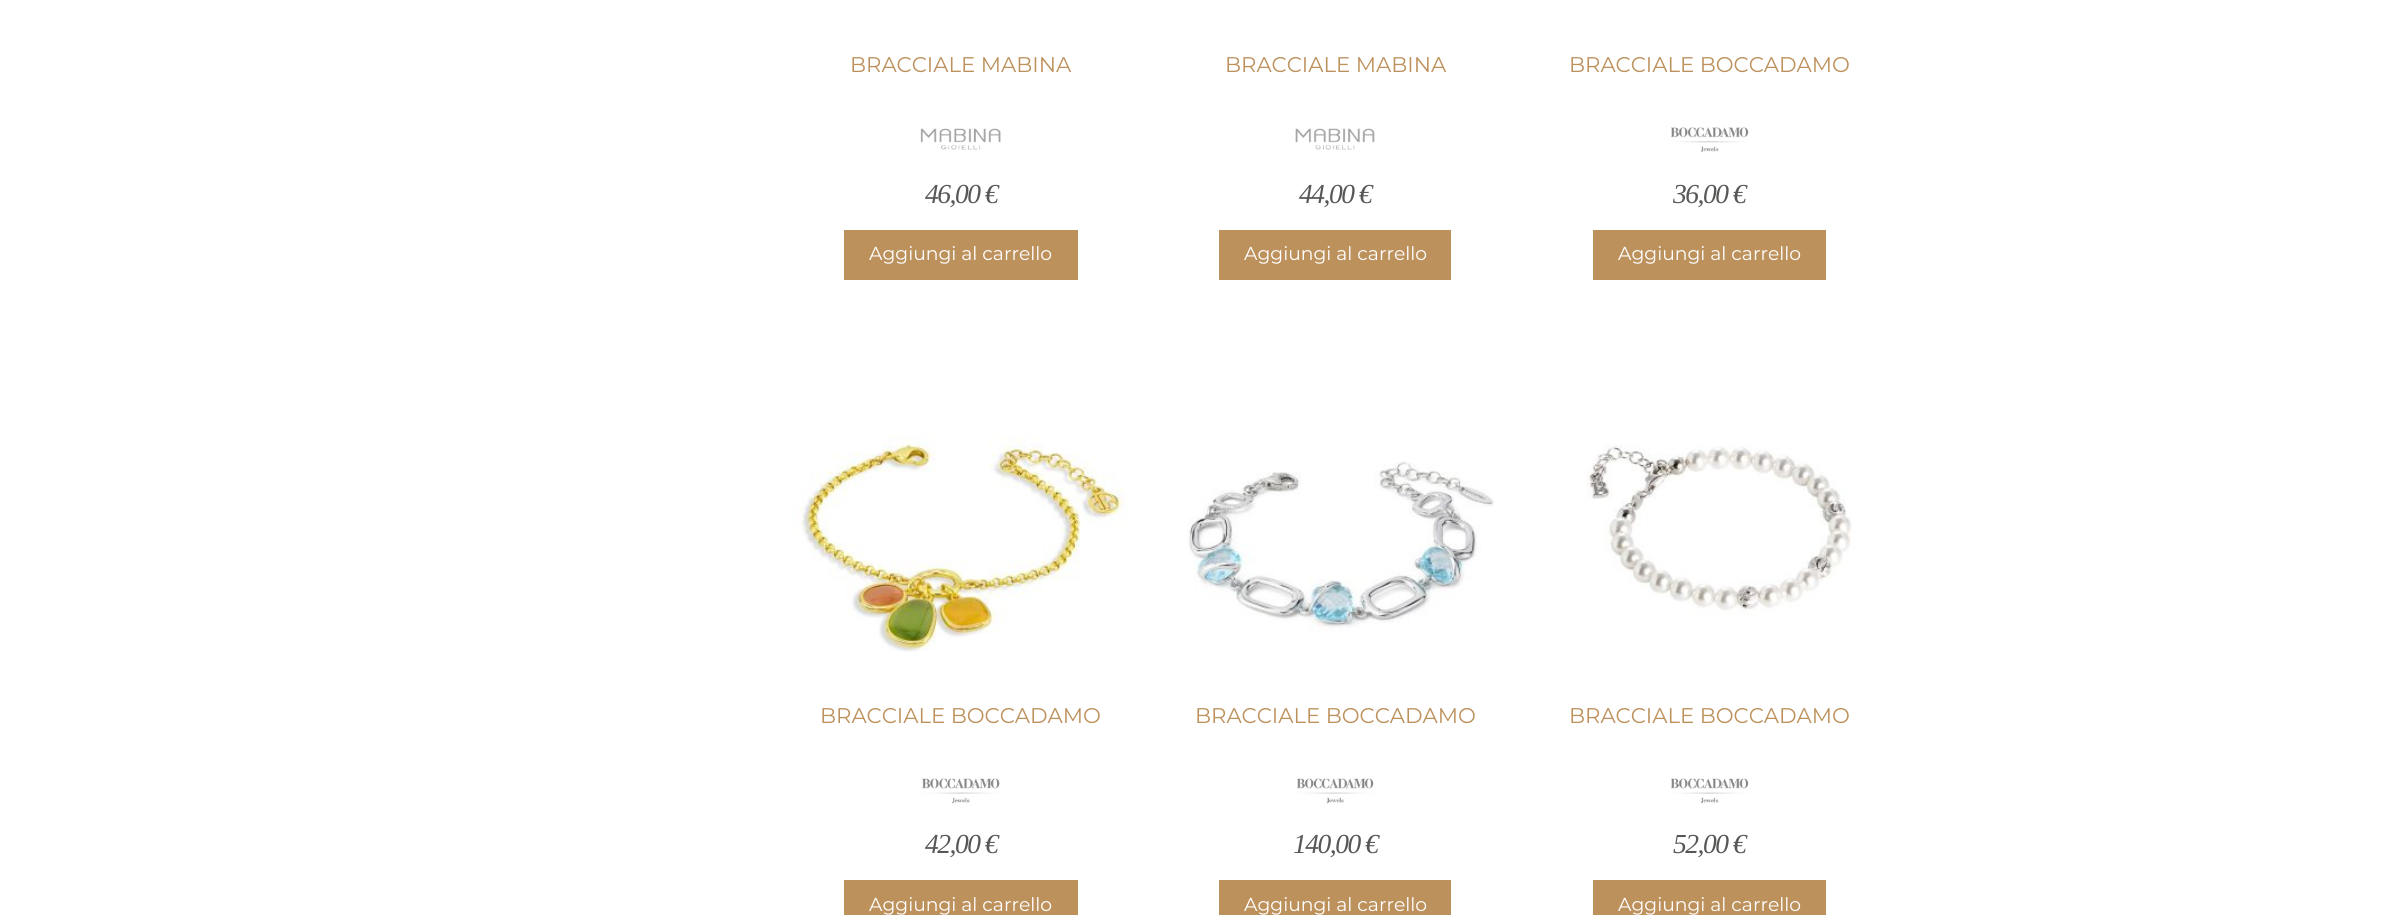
#include <cairo/cairo.h>
#include <math.h>
#include <stddef.h>

static cairo_t *cr;

static void use_color(int r, int g, int b) {
  cairo_set_source_rgb(cr, r / 255.0, g / 255.0, b / 255.0);
}

static void text(double x, double y, const char *s, const char *family, double size, int italic, int bold, int r, int g, int b) {
  cairo_select_font_face(cr, family, italic ? CAIRO_FONT_SLANT_ITALIC : CAIRO_FONT_SLANT_NORMAL,
    bold ? CAIRO_FONT_WEIGHT_BOLD : CAIRO_FONT_WEIGHT_NORMAL);
  cairo_set_font_size(cr, size);
  use_color(r, g, b);
  cairo_move_to(cr, x, y);
  cairo_show_text(cr, s);
}

static void spaced_text(double x, double y, const char *s, double letter, double word) {
  cairo_move_to(cr, x, y);
  while (*s) {
    char ch[5] = {0};
    int n = 0;
    do ch[n++] = *s++; while ((*s & 0xC0) == 0x80);
    cairo_show_text(cr, ch);
    cairo_rel_move_to(cr, letter + word * (*ch == ' '), 0);
  }
}

static void box(double x, double y, double w, double h, int r, int g, int b) {
  use_color(r, g, b);
  cairo_rectangle(cr, x, y, w, h);
  cairo_fill(cr);
}

static void picture(const char *path, double x, double y, double w, double h) {
  cairo_surface_t *image = cairo_image_surface_create_from_png(path);
  cairo_save(cr);
  cairo_set_source_surface(cr, image, x, y);
  cairo_rectangle(cr, x, y, w, h);
  cairo_fill(cr);
  cairo_restore(cr);
  cairo_surface_destroy(image);
}

static void draw(void) {
  use_color(255, 255, 255);
  cairo_paint(cr);
  picture("img_01.png", 920, 128, 81, 22);
  box(844, 230, 234, 50, 189, 145, 92);
  picture("img_02.png", 1295, 128, 80, 22);
  box(1219, 230, 232, 50, 189, 145, 92);
  picture("img_03.png", 1671, 127, 78, 25);
  box(1593, 230, 233, 50, 189, 145, 92);
  picture("img_04.png", 793, 435, 335, 217);
  picture("img_05.png", 922, 778, 78, 26);
  box(844, 880, 234, 35, 189, 145, 92);
  picture("img_06.png", 1187, 461, 307, 172);
  picture("img_07.png", 1297, 778, 77, 26);
  box(1219, 880, 232, 35, 189, 145, 92);
  picture("img_08.png", 1586, 445, 268, 170);
  picture("img_09.png", 1671, 778, 78, 26);
  box(1593, 880, 233, 35, 189, 145, 92);
  text(850, 72, "BRACCIALE MABINA", "Montserrat", 21.25, 0, 0, 189, 145, 92);
  cairo_select_font_face(cr, "Liberation Serif", CAIRO_FONT_SLANT_ITALIC, CAIRO_FONT_WEIGHT_NORMAL);
  cairo_set_font_size(cr, 27.5);
  use_color(87, 87, 86);
  spaced_text(925, 203, "46,00 €", -1.5, 0);
  text(869, 260, "Aggiungi al carrello", "Montserrat", 18.75, 0, 0, 255, 255, 255);
  text(1225, 72, "BRACCIALE MABINA", "Montserrat", 21.25, 0, 0, 189, 145, 92);
  cairo_select_font_face(cr, "Liberation Serif", CAIRO_FONT_SLANT_ITALIC, CAIRO_FONT_WEIGHT_NORMAL);
  cairo_set_font_size(cr, 27.5);
  use_color(87, 87, 86);
  spaced_text(1299, 203, "44,00 €", -1.5, 0);
  text(1244, 260, "Aggiungi al carrello", "Montserrat", 18.75, 0, 0, 255, 255, 255);
  text(1569, 72, "BRACCIALE BOCCADAMO", "Montserrat", 21.25, 0, 0, 189, 145, 92);
  cairo_select_font_face(cr, "Liberation Serif", CAIRO_FONT_SLANT_ITALIC, CAIRO_FONT_WEIGHT_NORMAL);
  cairo_set_font_size(cr, 27.5);
  use_color(87, 87, 86);
  spaced_text(1673, 203, "36,00 €", -1.5, 0);
  text(1618, 260, "Aggiungi al carrello", "Montserrat", 18.75, 0, 0, 255, 255, 255);
  text(820, 723, "BRACCIALE BOCCADAMO", "Montserrat", 21.25, 0, 0, 189, 145, 92);
  cairo_select_font_face(cr, "Liberation Serif", CAIRO_FONT_SLANT_ITALIC, CAIRO_FONT_WEIGHT_NORMAL);
  cairo_set_font_size(cr, 27.5);
  use_color(87, 87, 86);
  spaced_text(925, 853, "42,00 €", -1.5, 0);
  text(869, 911, "Aggiungi al carrello", "Montserrat", 18.75, 0, 0, 255, 255, 255);
  text(1195, 723, "BRACCIALE BOCCADAMO", "Montserrat", 21.25, 0, 0, 189, 145, 92);
  cairo_select_font_face(cr, "Liberation Serif", CAIRO_FONT_SLANT_ITALIC, CAIRO_FONT_WEIGHT_NORMAL);
  cairo_set_font_size(cr, 27.5);
  use_color(87, 87, 86);
  spaced_text(1293, 853, "140,00 €", -1.5, 0);
  text(1244, 911, "Aggiungi al carrello", "Montserrat", 18.75, 0, 0, 255, 255, 255);
  text(1569, 723, "BRACCIALE BOCCADAMO", "Montserrat", 21.25, 0, 0, 189, 145, 92);
  cairo_select_font_face(cr, "Liberation Serif", CAIRO_FONT_SLANT_ITALIC, CAIRO_FONT_WEIGHT_NORMAL);
  cairo_set_font_size(cr, 27.5);
  use_color(87, 87, 86);
  spaced_text(1673, 853, "52,00 €", -1.5, 0);
  text(1618, 911, "Aggiungi al carrello", "Montserrat", 18.75, 0, 0, 255, 255, 255);
}

int main(void) {
  cairo_surface_t *surface = cairo_image_surface_create(CAIRO_FORMAT_RGB24, 2390, 915);
  cr = cairo_create(surface);
  cairo_font_options_t *options = cairo_font_options_create();
  cairo_font_options_set_hint_metrics(options, CAIRO_HINT_METRICS_OFF);
  cairo_font_options_set_hint_style(options, CAIRO_HINT_STYLE_NONE);
  cairo_set_font_options(cr, options);
  cairo_set_miter_limit(cr, 4);
  draw();
  cairo_surface_write_to_png(surface, "out.png");
  cairo_font_options_destroy(options);
  cairo_destroy(cr);
  cairo_surface_destroy(surface);
  return 0;
}
